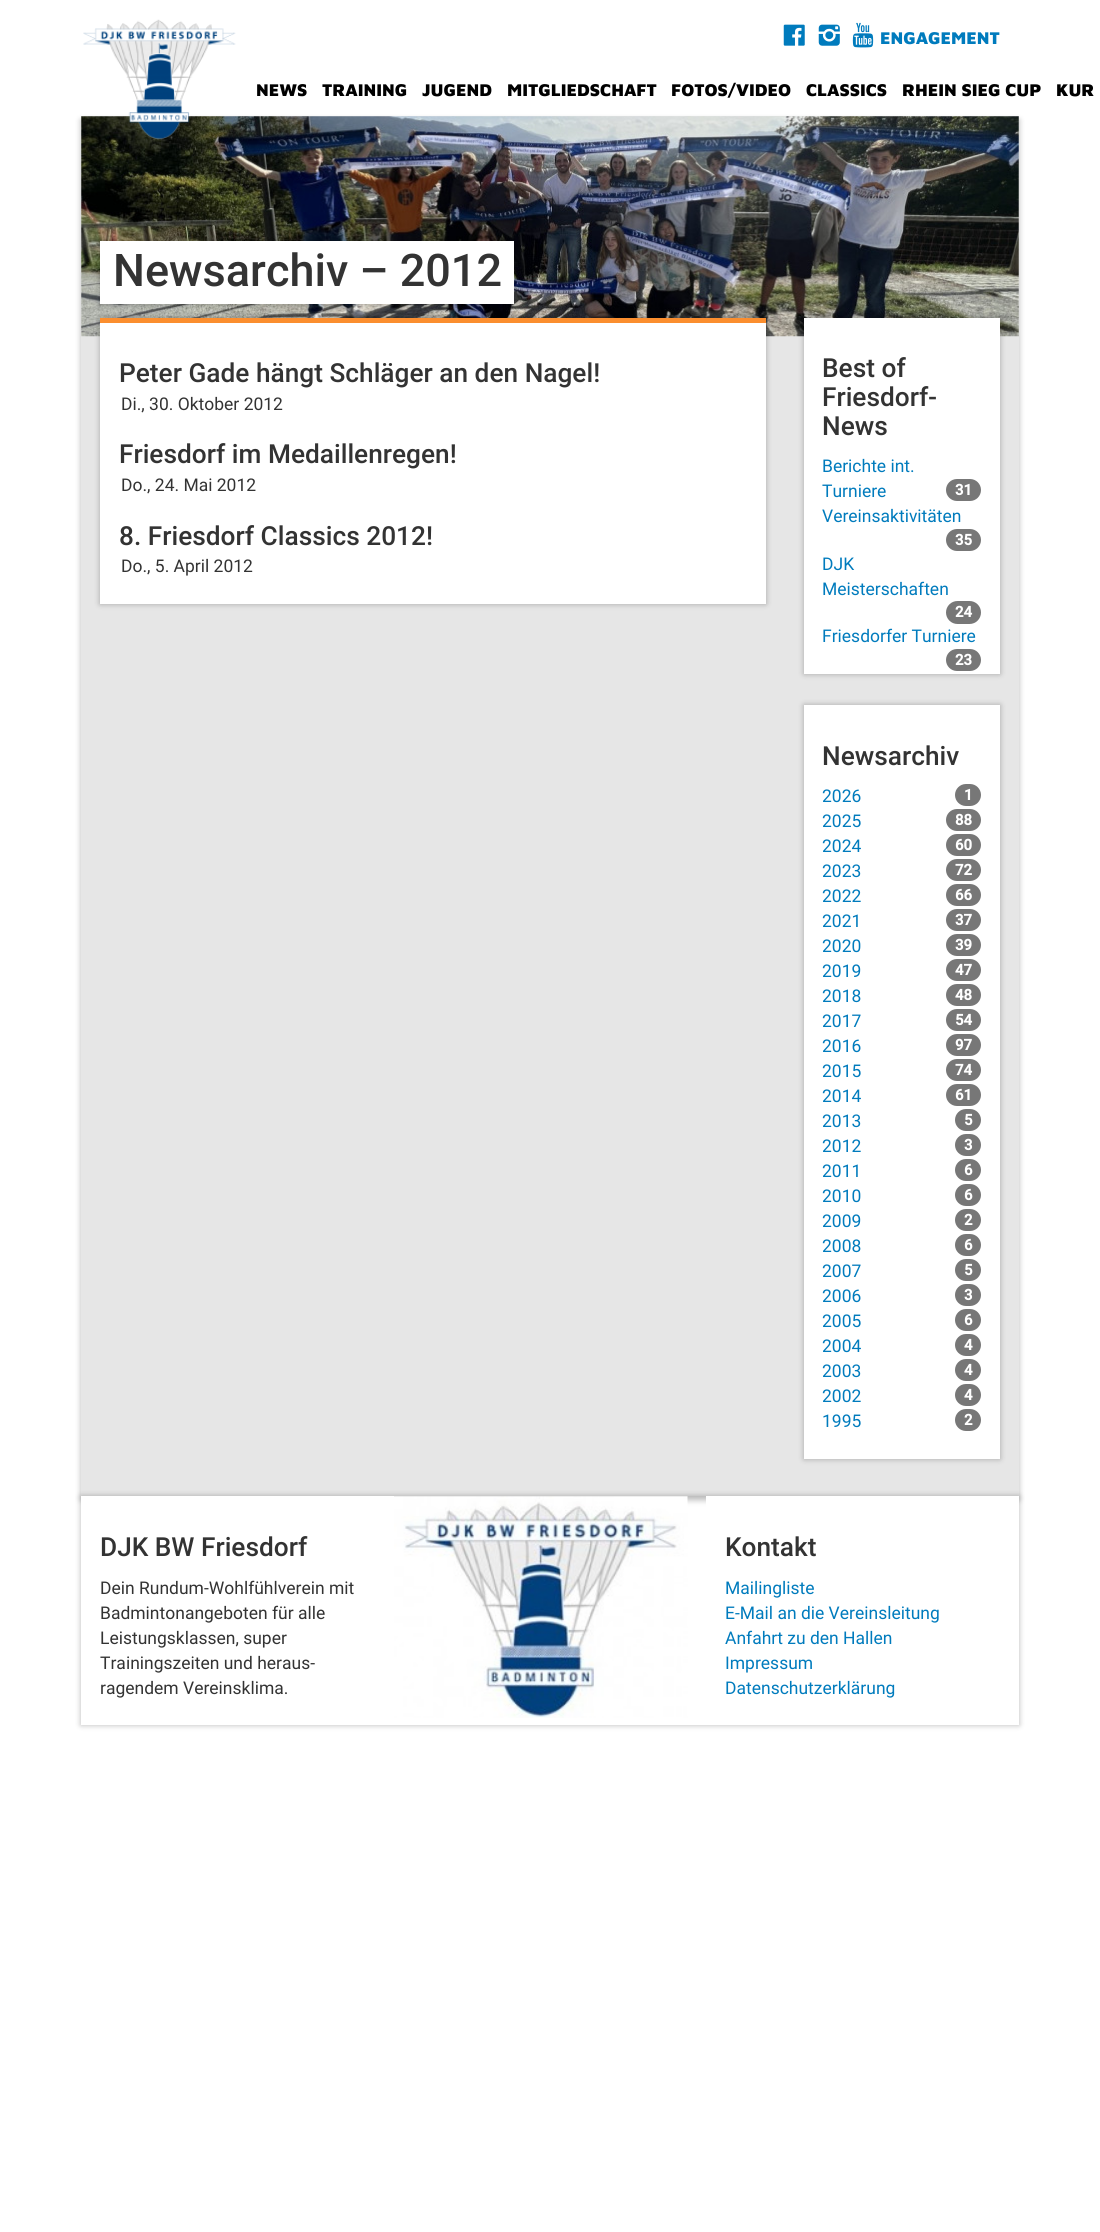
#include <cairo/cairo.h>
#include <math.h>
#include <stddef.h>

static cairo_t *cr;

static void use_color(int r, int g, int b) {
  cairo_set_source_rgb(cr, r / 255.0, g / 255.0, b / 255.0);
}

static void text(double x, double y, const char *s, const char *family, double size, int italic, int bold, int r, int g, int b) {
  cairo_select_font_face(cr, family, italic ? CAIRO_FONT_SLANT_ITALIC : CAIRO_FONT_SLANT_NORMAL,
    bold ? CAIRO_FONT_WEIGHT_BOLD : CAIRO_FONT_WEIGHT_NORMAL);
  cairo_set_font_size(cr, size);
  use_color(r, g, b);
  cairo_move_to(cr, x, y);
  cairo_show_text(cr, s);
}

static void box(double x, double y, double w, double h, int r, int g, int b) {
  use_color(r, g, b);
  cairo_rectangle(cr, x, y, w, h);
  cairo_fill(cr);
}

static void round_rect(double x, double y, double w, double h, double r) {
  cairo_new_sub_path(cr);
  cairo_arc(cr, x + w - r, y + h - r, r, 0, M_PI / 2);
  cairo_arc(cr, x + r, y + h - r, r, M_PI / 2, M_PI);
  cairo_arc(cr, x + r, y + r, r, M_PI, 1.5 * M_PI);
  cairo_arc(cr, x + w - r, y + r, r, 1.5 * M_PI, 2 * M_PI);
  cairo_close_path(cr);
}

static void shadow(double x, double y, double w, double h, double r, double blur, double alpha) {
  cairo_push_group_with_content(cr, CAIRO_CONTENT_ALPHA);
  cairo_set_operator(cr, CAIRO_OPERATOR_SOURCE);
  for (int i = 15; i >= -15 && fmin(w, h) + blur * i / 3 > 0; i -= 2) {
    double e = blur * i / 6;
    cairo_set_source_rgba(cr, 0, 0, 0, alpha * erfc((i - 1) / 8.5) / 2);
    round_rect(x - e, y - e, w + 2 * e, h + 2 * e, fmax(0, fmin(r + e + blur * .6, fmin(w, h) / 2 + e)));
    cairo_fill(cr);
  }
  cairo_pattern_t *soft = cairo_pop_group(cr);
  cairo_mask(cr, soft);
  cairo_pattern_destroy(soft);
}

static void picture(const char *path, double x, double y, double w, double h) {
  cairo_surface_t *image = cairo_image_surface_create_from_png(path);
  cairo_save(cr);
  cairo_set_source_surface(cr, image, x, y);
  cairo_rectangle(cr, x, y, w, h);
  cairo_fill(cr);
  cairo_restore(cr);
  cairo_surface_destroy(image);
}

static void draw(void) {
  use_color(255, 255, 255);
  cairo_paint(cr);
  picture("img_01.png", 783, 24, 22, 22);
  picture("img_02.png", 818, 24, 22, 22);
  picture("img_03.png", 852, 22, 22, 26);
  use_color(0, 0, 0);
  shadow(81, 120, 938, 1380, 0, 3, 0.28);
  box(81, 116, 938, 1380, 230, 230, 230);
  picture("img_05.png", 81, 116, 938, 221);
  picture("img_04.png", 83, 19, 153, 120);
  use_color(0, 0, 0);
  shadow(100, 241, 414, 63, 0, 3, 0.28);
  box(100, 241, 414, 63, 255, 255, 255);
  use_color(0, 0, 0);
  shadow(100, 318, 666, 286, 0, 3, 0.28);
  box(100, 323, 666, 281, 255, 255, 255);
  box(100, 318, 666, 5, 251, 142, 47);
  use_color(0, 0, 0);
  shadow(804, 318, 196, 356, 0, 3, 0.28);
  box(804, 318, 196, 356, 255, 255, 255);
  use_color(119, 119, 119);
  round_rect(946, 479, 35, 22, 11);
  cairo_fill(cr);
  round_rect(946, 529, 35, 22, 11);
  cairo_fill(cr);
  round_rect(946, 601, 35, 23, 11.5);
  cairo_fill(cr);
  round_rect(946, 649, 35, 22, 11);
  cairo_fill(cr);
  use_color(0, 0, 0);
  shadow(804, 705, 196, 754, 0, 3, 0.28);
  box(804, 705, 196, 754, 255, 255, 255);
  use_color(119, 119, 119);
  round_rect(955, 784, 26, 22, 11);
  cairo_fill(cr);
  round_rect(946, 809, 35, 22, 11);
  cairo_fill(cr);
  round_rect(946, 834, 35, 22, 11);
  cairo_fill(cr);
  round_rect(946, 859, 35, 22, 11);
  cairo_fill(cr);
  round_rect(946, 884, 35, 22, 11);
  cairo_fill(cr);
  round_rect(946, 909, 35, 22, 11);
  cairo_fill(cr);
  round_rect(946, 934, 35, 22, 11);
  cairo_fill(cr);
  round_rect(946, 959, 35, 22, 11);
  cairo_fill(cr);
  round_rect(946, 984, 35, 22, 11);
  cairo_fill(cr);
  round_rect(946, 1009, 35, 22, 11);
  cairo_fill(cr);
  round_rect(946, 1034, 35, 22, 11);
  cairo_fill(cr);
  round_rect(946, 1059, 35, 22, 11);
  cairo_fill(cr);
  round_rect(946, 1084, 35, 22, 11);
  cairo_fill(cr);
  round_rect(955, 1109, 26, 22, 11);
  cairo_fill(cr);
  round_rect(955, 1134, 26, 22, 11);
  cairo_fill(cr);
  round_rect(955, 1159, 26, 22, 11);
  cairo_fill(cr);
  round_rect(955, 1184, 26, 22, 11);
  cairo_fill(cr);
  round_rect(955, 1209, 26, 22, 11);
  cairo_fill(cr);
  round_rect(955, 1234, 26, 22, 11);
  cairo_fill(cr);
  round_rect(955, 1259, 26, 22, 11);
  cairo_fill(cr);
  round_rect(955, 1284, 26, 22, 11);
  cairo_fill(cr);
  round_rect(955, 1309, 26, 22, 11);
  cairo_fill(cr);
  round_rect(955, 1334, 26, 22, 11);
  cairo_fill(cr);
  round_rect(955, 1359, 26, 22, 11);
  cairo_fill(cr);
  round_rect(955, 1384, 26, 22, 11);
  cairo_fill(cr);
  round_rect(955, 1409, 26, 22, 11);
  cairo_fill(cr);
  cairo_save(cr);
  cairo_set_fill_rule(cr, CAIRO_FILL_RULE_EVEN_ODD);
  cairo_new_path(cr);
  cairo_move_to(cr, 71, 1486);
  cairo_line_to(cr, 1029, 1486);
  cairo_line_to(cr, 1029, 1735);
  cairo_line_to(cr, 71, 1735);
  cairo_close_path(cr);
  cairo_move_to(cr, 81, 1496);
  cairo_line_to(cr, 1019, 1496);
  cairo_line_to(cr, 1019, 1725);
  cairo_line_to(cr, 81, 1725);
  cairo_close_path(cr);
  cairo_clip(cr);
  use_color(0, 0, 0);
  shadow(81, 1496, 938, 229, 0, 3, 0.28);
  cairo_restore(cr);
  box(81, 1496, 313, 229, 255, 255, 255);
  picture("img_06.png", 394, 1496, 294, 222);
  box(706, 1496, 313, 229, 255, 255, 255);
  text(880, 44, "ENGAGEMENT", "Maven Pro Black", 17.5, 0, 0, 0, 123, 189);
  text(256, 96, "NEWS", "Maven Pro Black", 17.5, 0, 0, 0, 0, 0);
  text(322, 96, "TRAINING", "Maven Pro Black", 17.5, 0, 0, 0, 0, 0);
  text(422, 96, "JUGEND", "Maven Pro Black", 17.5, 0, 0, 0, 0, 0);
  text(507, 96, "MITGLIEDSCHAFT", "Maven Pro Black", 17.5, 0, 0, 0, 0, 0);
  text(671, 96, "FOTOS/VIDEO", "Maven Pro Black", 17.5, 0, 0, 0, 0, 0);
  text(806, 96, "CLASSICS", "Maven Pro Black", 17.5, 0, 0, 0, 0, 0);
  text(902, 96, "RHEIN SIEG CUP", "Maven Pro Black", 17.5, 0, 0, 0, 0, 0);
  text(1056, 96, "KUR", "Maven Pro Black", 17.5, 0, 0, 0, 0, 0);
  text(113, 286, "Newsarchiv – 2012", "Roboto Medium", 45, 0, 0, 51, 51, 51);
  text(119, 382, "Peter Gade hängt Schläger an den Nagel!", "Roboto Medium", 26.25, 0, 0, 51, 51, 51);
  text(121, 410, "Di., 30. Oktober 2012", "Roboto", 17.5, 0, 0, 51, 51, 51);
  text(119, 463, "Friesdorf im Medaillenregen!", "Roboto Medium", 26.25, 0, 0, 51, 51, 51);
  text(121, 491, "Do., 24. Mai 2012", "Roboto", 17.5, 0, 0, 51, 51, 51);
  text(119, 545, "8. Friesdorf Classics 2012!", "Roboto Medium", 26.25, 0, 0, 51, 51, 51);
  text(121, 572, "Do., 5. April 2012", "Roboto", 17.5, 0, 0, 51, 51, 51);
  text(822, 377, "Best of", "Roboto Medium", 26.25, 0, 0, 51, 51, 51);
  text(822, 406, "Friesdorf-", "Roboto Medium", 26.25, 0, 0, 51, 51, 51);
  text(822, 435, "News", "Roboto Medium", 26.25, 0, 0, 51, 51, 51);
  text(822, 472, "Berichte int.", "Roboto", 17.5, 0, 0, 0, 123, 189);
  text(822, 497, "Turniere", "Roboto", 17.5, 0, 0, 0, 123, 189);
  text(955, 495, "31", "Roboto", 15, 0, 1, 255, 255, 255);
  text(822, 522, "Vereinsaktivitäten", "Roboto", 17.5, 0, 0, 0, 123, 189);
  text(955, 545, "35", "Roboto", 15, 0, 1, 255, 255, 255);
  text(822, 570, "DJK", "Roboto", 17.5, 0, 0, 0, 123, 189);
  text(822, 595, "Meisterschaften", "Roboto", 17.5, 0, 0, 0, 123, 189);
  text(955, 617, "24", "Roboto", 15, 0, 1, 255, 255, 255);
  text(822, 642, "Friesdorfer Turniere", "Roboto", 17.5, 0, 0, 0, 123, 189);
  text(955, 665, "23", "Roboto", 15, 0, 1, 255, 255, 255);
  text(822, 765, "Newsarchiv", "Roboto Medium", 26.25, 0, 0, 51, 51, 51);
  text(822, 802, "2026", "Roboto", 17.5, 0, 0, 0, 123, 189);
  text(964, 800, "1", "Roboto", 15, 0, 1, 255, 255, 255);
  text(822, 827, "2025", "Roboto", 17.5, 0, 0, 0, 123, 189);
  text(955, 825, "88", "Roboto", 15, 0, 1, 255, 255, 255);
  text(822, 852, "2024", "Roboto", 17.5, 0, 0, 0, 123, 189);
  text(955, 850, "60", "Roboto", 15, 0, 1, 255, 255, 255);
  text(822, 877, "2023", "Roboto", 17.5, 0, 0, 0, 123, 189);
  text(955, 875, "72", "Roboto", 15, 0, 1, 255, 255, 255);
  text(822, 902, "2022", "Roboto", 17.5, 0, 0, 0, 123, 189);
  text(955, 900, "66", "Roboto", 15, 0, 1, 255, 255, 255);
  text(822, 927, "2021", "Roboto", 17.5, 0, 0, 0, 123, 189);
  text(955, 925, "37", "Roboto", 15, 0, 1, 255, 255, 255);
  text(822, 952, "2020", "Roboto", 17.5, 0, 0, 0, 123, 189);
  text(955, 950, "39", "Roboto", 15, 0, 1, 255, 255, 255);
  text(822, 977, "2019", "Roboto", 17.5, 0, 0, 0, 123, 189);
  text(955, 975, "47", "Roboto", 15, 0, 1, 255, 255, 255);
  text(822, 1002, "2018", "Roboto", 17.5, 0, 0, 0, 123, 189);
  text(955, 1000, "48", "Roboto", 15, 0, 1, 255, 255, 255);
  text(822, 1027, "2017", "Roboto", 17.5, 0, 0, 0, 123, 189);
  text(955, 1025, "54", "Roboto", 15, 0, 1, 255, 255, 255);
  text(822, 1052, "2016", "Roboto", 17.5, 0, 0, 0, 123, 189);
  text(955, 1050, "97", "Roboto", 15, 0, 1, 255, 255, 255);
  text(822, 1077, "2015", "Roboto", 17.5, 0, 0, 0, 123, 189);
  text(955, 1075, "74", "Roboto", 15, 0, 1, 255, 255, 255);
  text(822, 1102, "2014", "Roboto", 17.5, 0, 0, 0, 123, 189);
  text(955, 1100, "61", "Roboto", 15, 0, 1, 255, 255, 255);
  text(822, 1127, "2013", "Roboto", 17.5, 0, 0, 0, 123, 189);
  text(964, 1125, "5", "Roboto", 15, 0, 1, 255, 255, 255);
  text(822, 1152, "2012", "Roboto", 17.5, 0, 0, 0, 123, 189);
  text(964, 1150, "3", "Roboto", 15, 0, 1, 255, 255, 255);
  text(822, 1177, "2011", "Roboto", 17.5, 0, 0, 0, 123, 189);
  text(964, 1175, "6", "Roboto", 15, 0, 1, 255, 255, 255);
  text(822, 1202, "2010", "Roboto", 17.5, 0, 0, 0, 123, 189);
  text(964, 1200, "6", "Roboto", 15, 0, 1, 255, 255, 255);
  text(822, 1227, "2009", "Roboto", 17.5, 0, 0, 0, 123, 189);
  text(964, 1225, "2", "Roboto", 15, 0, 1, 255, 255, 255);
  text(822, 1252, "2008", "Roboto", 17.5, 0, 0, 0, 123, 189);
  text(964, 1250, "6", "Roboto", 15, 0, 1, 255, 255, 255);
  text(822, 1277, "2007", "Roboto", 17.5, 0, 0, 0, 123, 189);
  text(964, 1275, "5", "Roboto", 15, 0, 1, 255, 255, 255);
  text(822, 1302, "2006", "Roboto", 17.5, 0, 0, 0, 123, 189);
  text(964, 1300, "3", "Roboto", 15, 0, 1, 255, 255, 255);
  text(822, 1327, "2005", "Roboto", 17.5, 0, 0, 0, 123, 189);
  text(964, 1325, "6", "Roboto", 15, 0, 1, 255, 255, 255);
  text(822, 1352, "2004", "Roboto", 17.5, 0, 0, 0, 123, 189);
  text(964, 1350, "4", "Roboto", 15, 0, 1, 255, 255, 255);
  text(822, 1377, "2003", "Roboto", 17.5, 0, 0, 0, 123, 189);
  text(964, 1375, "4", "Roboto", 15, 0, 1, 255, 255, 255);
  text(822, 1402, "2002", "Roboto", 17.5, 0, 0, 0, 123, 189);
  text(964, 1400, "4", "Roboto", 15, 0, 1, 255, 255, 255);
  text(822, 1427, "1995", "Roboto", 17.5, 0, 0, 0, 123, 189);
  text(964, 1425, "2", "Roboto", 15, 0, 1, 255, 255, 255);
  text(100, 1556, "DJK BW Friesdorf", "Roboto Medium", 26.25, 0, 0, 51, 51, 51);
  text(100, 1594, "Dein Rundum-Wohlfühlverein mit", "Roboto", 17.5, 0, 0, 51, 51, 51);
  text(100, 1619, "Badmintonangeboten für alle", "Roboto", 17.5, 0, 0, 51, 51, 51);
  text(100, 1644, "Leistungsklassen, super", "Roboto", 17.5, 0, 0, 51, 51, 51);
  text(100, 1669, "Trainingszeiten und heraus-", "Roboto", 17.5, 0, 0, 51, 51, 51);
  text(100, 1694, "ragendem Vereinsklima.", "Roboto", 17.5, 0, 0, 51, 51, 51);
  text(725, 1556, "Kontakt", "Roboto Medium", 26.25, 0, 0, 51, 51, 51);
  text(725, 1594, "Mailingliste", "Roboto", 17.5, 0, 0, 0, 123, 189);
  text(725, 1619, "E-Mail an die Vereinsleitung", "Roboto", 17.5, 0, 0, 0, 123, 189);
  text(725, 1644, "Anfahrt zu den Hallen", "Roboto", 17.5, 0, 0, 0, 123, 189);
  text(725, 1669, "Impressum", "Roboto", 17.5, 0, 0, 0, 123, 189);
  text(725, 1694, "Datenschutzerklärung", "Roboto", 17.5, 0, 0, 0, 123, 189);
}

int main(void) {
  cairo_surface_t *surface = cairo_image_surface_create(CAIRO_FORMAT_RGB24, 1100, 2232);
  cr = cairo_create(surface);
  cairo_font_options_t *options = cairo_font_options_create();
  cairo_font_options_set_hint_metrics(options, CAIRO_HINT_METRICS_OFF);
  cairo_font_options_set_hint_style(options, CAIRO_HINT_STYLE_NONE);
  cairo_set_font_options(cr, options);
  cairo_set_miter_limit(cr, 4);
  draw();
  cairo_surface_write_to_png(surface, "out.png");
  cairo_font_options_destroy(options);
  cairo_destroy(cr);
  cairo_surface_destroy(surface);
  return 0;
}
